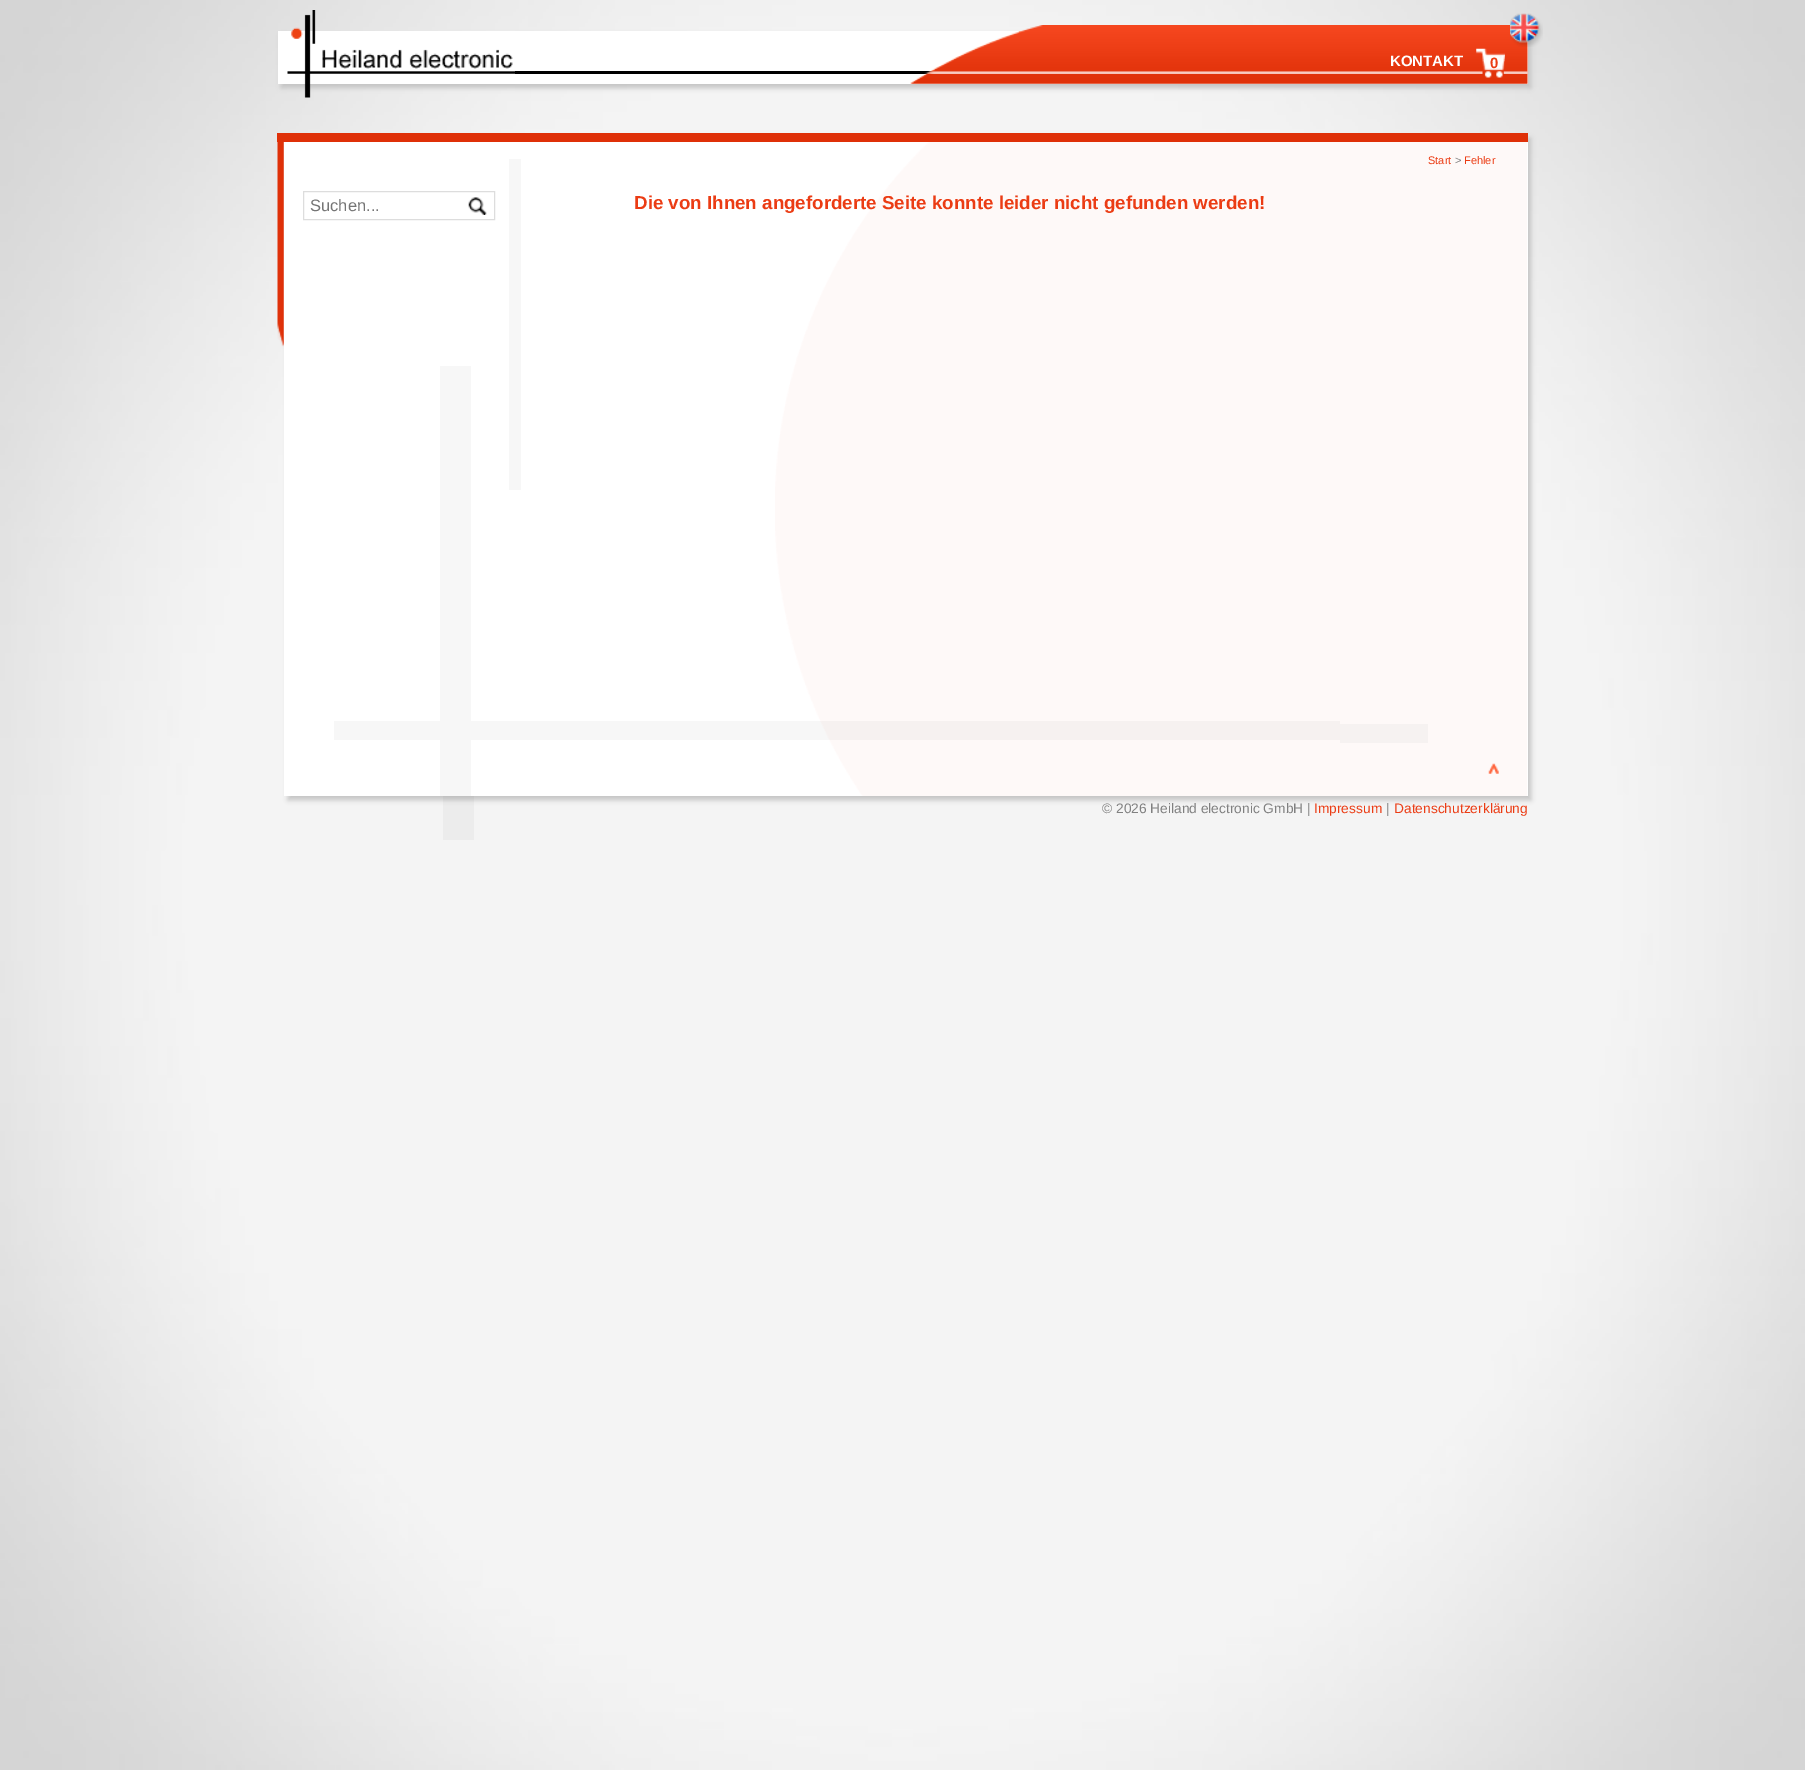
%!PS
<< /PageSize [1805 1770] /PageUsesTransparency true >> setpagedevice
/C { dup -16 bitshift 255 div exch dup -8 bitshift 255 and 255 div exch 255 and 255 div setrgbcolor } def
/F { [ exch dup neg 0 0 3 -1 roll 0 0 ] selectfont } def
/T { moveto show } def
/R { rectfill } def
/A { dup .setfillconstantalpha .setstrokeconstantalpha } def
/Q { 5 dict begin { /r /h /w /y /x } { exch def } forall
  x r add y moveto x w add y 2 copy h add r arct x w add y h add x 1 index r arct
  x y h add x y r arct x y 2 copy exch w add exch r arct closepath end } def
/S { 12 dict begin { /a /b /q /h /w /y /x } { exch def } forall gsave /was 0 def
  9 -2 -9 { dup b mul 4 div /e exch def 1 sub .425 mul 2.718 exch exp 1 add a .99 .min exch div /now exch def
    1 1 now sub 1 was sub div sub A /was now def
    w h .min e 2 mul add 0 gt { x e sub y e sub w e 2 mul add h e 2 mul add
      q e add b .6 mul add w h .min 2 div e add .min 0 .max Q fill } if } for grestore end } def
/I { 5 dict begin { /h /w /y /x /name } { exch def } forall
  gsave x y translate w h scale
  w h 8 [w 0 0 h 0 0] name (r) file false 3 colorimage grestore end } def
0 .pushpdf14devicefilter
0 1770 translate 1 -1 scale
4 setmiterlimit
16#FFFFFF C
0 0 1805 1770 R
(1.rgb) 0 0 1805 1770 I
16#C4C4C4 C
281 35 1250 53 0 2.5 1 S
16#FFFFFF C
278 31 1250 53 R
(2.rgb) 287 10 228 88 I
16#000000 C
515 71 418 3 R
(4.rgb) 910 25 618 59 I
(3.rgb) 1510 13 33 34 I
/LiberationSans-Bold 15 F
16#FFFFFF C
(KONTAKT) 1390 66 T
(6.rgb) 924 71 604 3 I
(5.rgb) 1476 48 29 30 I
16#EB3C14 C
(0) 1490 68 T
16#C4C4C4 C
288 138 1243 662 0 2.5 1 S
16#FFFFFF C
284 142 1244 654 R
(7.rgb) 775 142 752 654 I
16#DF3008 C
277 133 1251 9 R
(8.rgb) 277 142 7 205 I
/LiberationSans-Regular 11 F
16#EB3C14 C
(Start) 1428 164 T
16#808080 C
(>) 1455 164 T
16#EB3C14 C
(Fehler) 1464 164 T
16#DDDDDD C
303.5 191.5 191 28 rectstroke
/LiberationSans-Regular 16.5 F
16#757575 C
(Suchen...) 310 211 T
(9.rgb) 468 197 19 18 I
/LiberationSans-Bold 18.75 F
16#EB3C14 C
(Die von Ihnen angeforderte Seite konnte leider nicht gefunden werden!) 634 209 T
(10.rgb) 1488 763 11 11 I
16#F7F7F7 C
509 159 12 331 R
334 721 106 19 R
440 366 31 430 R
0.03 A
16#000000 C
471 721 869 19 R
1 A
16#F6F2F1 C
1340 724 88 19 R
0.03 A
16#000000 C
443 796 31 44 R
/LiberationSans-Regular 13.75 F
1 A
16#808080 C
(© 2026 Heiland electronic GmbH |) 1102 813 T
16#EB3C14 C
(Impressum) 1314 813 T
16#808080 C
(|) 1386 813 T
16#EB3C14 C
(Datenschutzerklärung) 1394 813 T
.poppdf14devicefilter showpage
